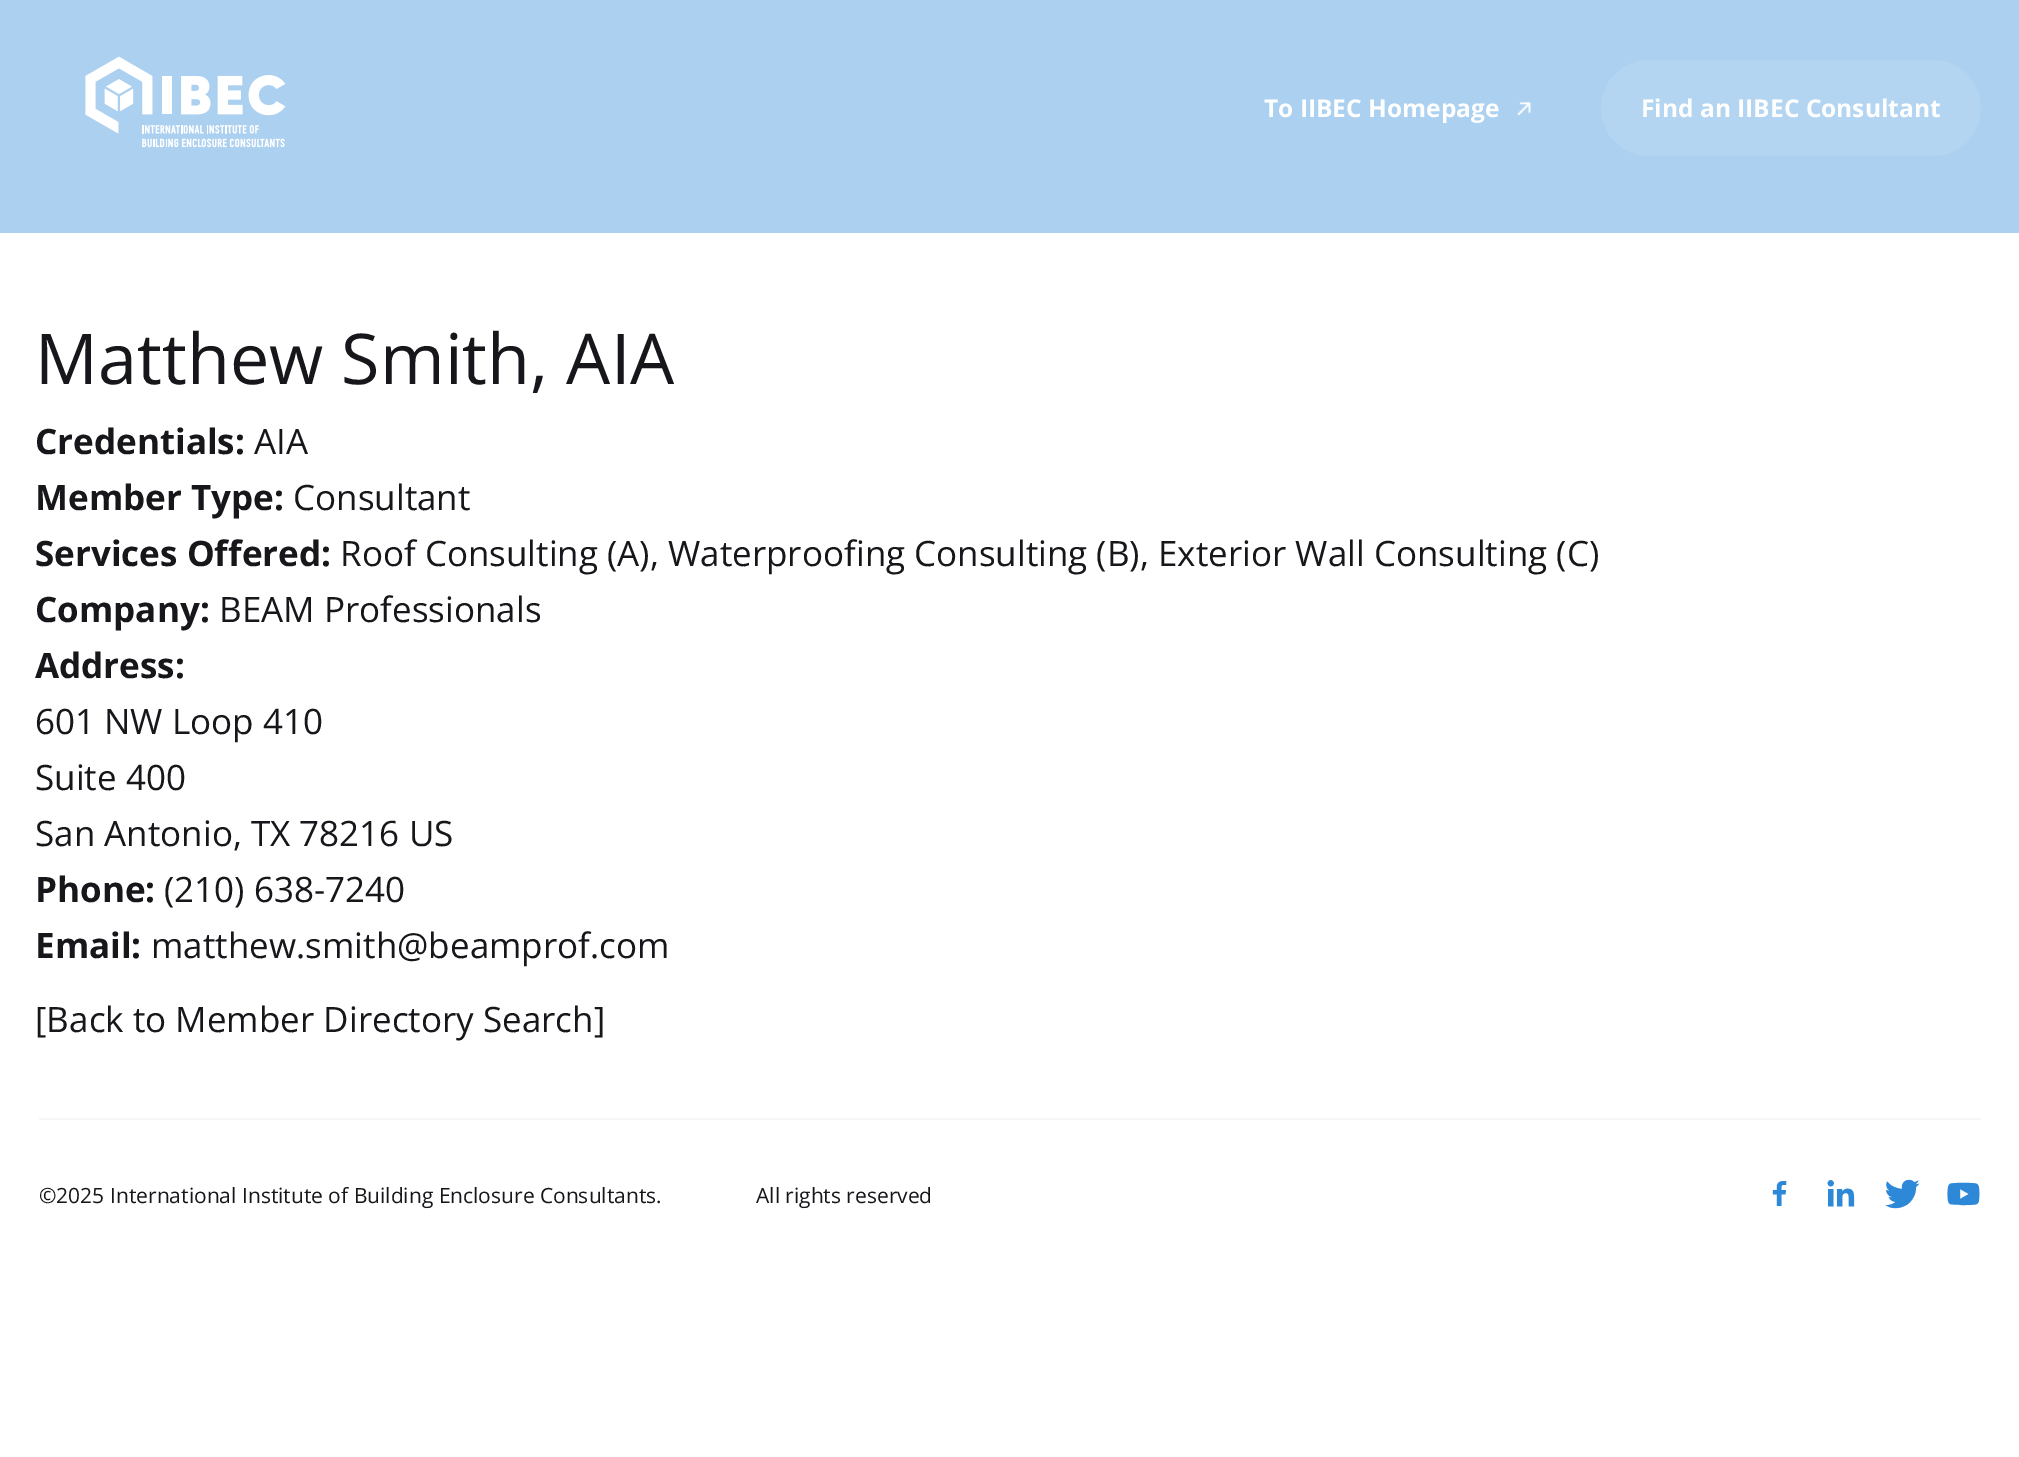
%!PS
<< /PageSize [2019 1457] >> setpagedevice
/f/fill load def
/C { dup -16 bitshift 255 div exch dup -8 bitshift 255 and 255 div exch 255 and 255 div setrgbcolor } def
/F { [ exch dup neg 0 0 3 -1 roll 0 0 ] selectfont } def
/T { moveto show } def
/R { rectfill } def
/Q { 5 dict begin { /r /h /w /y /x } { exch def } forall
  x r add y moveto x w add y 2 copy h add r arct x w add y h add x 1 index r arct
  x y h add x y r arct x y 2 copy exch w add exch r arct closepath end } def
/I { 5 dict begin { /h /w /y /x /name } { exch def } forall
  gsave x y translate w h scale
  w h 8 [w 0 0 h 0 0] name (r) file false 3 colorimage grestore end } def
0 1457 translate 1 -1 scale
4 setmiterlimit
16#FFFFFF C
0 0 2019 1457 R
16#ACD0F0 C
0 0 2019 233 R
(1.rgb) 85 56 201 92 I
/OpenSans-Bold 24.5 F
16#FFFFFF C
(To IIBEC Homepage) 1264 117 T
(2.rgb) 1517 101 14 15 I
16#B4D5F2 C
1601 60 380 96 48 Q f
16#FFFFFF C
(Find an IIBEC Consultant) 1641 117 T
/OpenSans-Regular 70 F
16#17171B C
(Matthew Smith, AIA) 35 384 T
/OpenSans-Bold 35 F
(Credentials:) 35 454 T
/OpenSans-Regular 35 F
(AIA) 254 454 T
/OpenSans-Bold 35 F
(Member Type:) 35 510 T
/OpenSans-Regular 35 F
(Consultant) 293 510 T
/OpenSans-Bold 35 F
(Services Offered:) 35 566 T
/OpenSans-Regular 35 F
(Roof Consulting \(A\), Waterproofing Consulting \(B\), Exterior Wall Consulting \(C\)) 340 566 T
/OpenSans-Bold 35 F
(Company:) 35 622 T
/OpenSans-Regular 35 F
(BEAM Professionals) 219 622 T
/OpenSans-Bold 35 F
(Address:) 35 678 T
/OpenSans-Regular 35 F
(601 NW Loop 410) 35 734 T
(Suite 400) 35 790 T
(San Antonio, TX 78216 US) 35 846 T
/OpenSans-Bold 35 F
(Phone:) 35 902 T
/OpenSans-Regular 35 F
(\(210\) 638-7240) 164 902 T
/OpenSans-Bold 35 F
(Email:) 35 958 T
/OpenSans-Regular 35 F
(matthew.smith@beamprof.com) 151 958 T
([Back to Member Directory Search]) 35 1032 T
16#F6F6F6 C
39 1118 1942 2 R
/OpenSans-Regular 21 F
16#17171B C
(©2025 International Institute of Building Enclosure Consultants.) 39 1203 T
(All rights reserved) 756 1203 T
(3.rgb) 1772 1181 15 25 I
(4.rgb) 1827 1180 28 27 I
(5.rgb) 1885 1179 35 30 I
(6.rgb) 1947 1182 33 24 I
showpage
